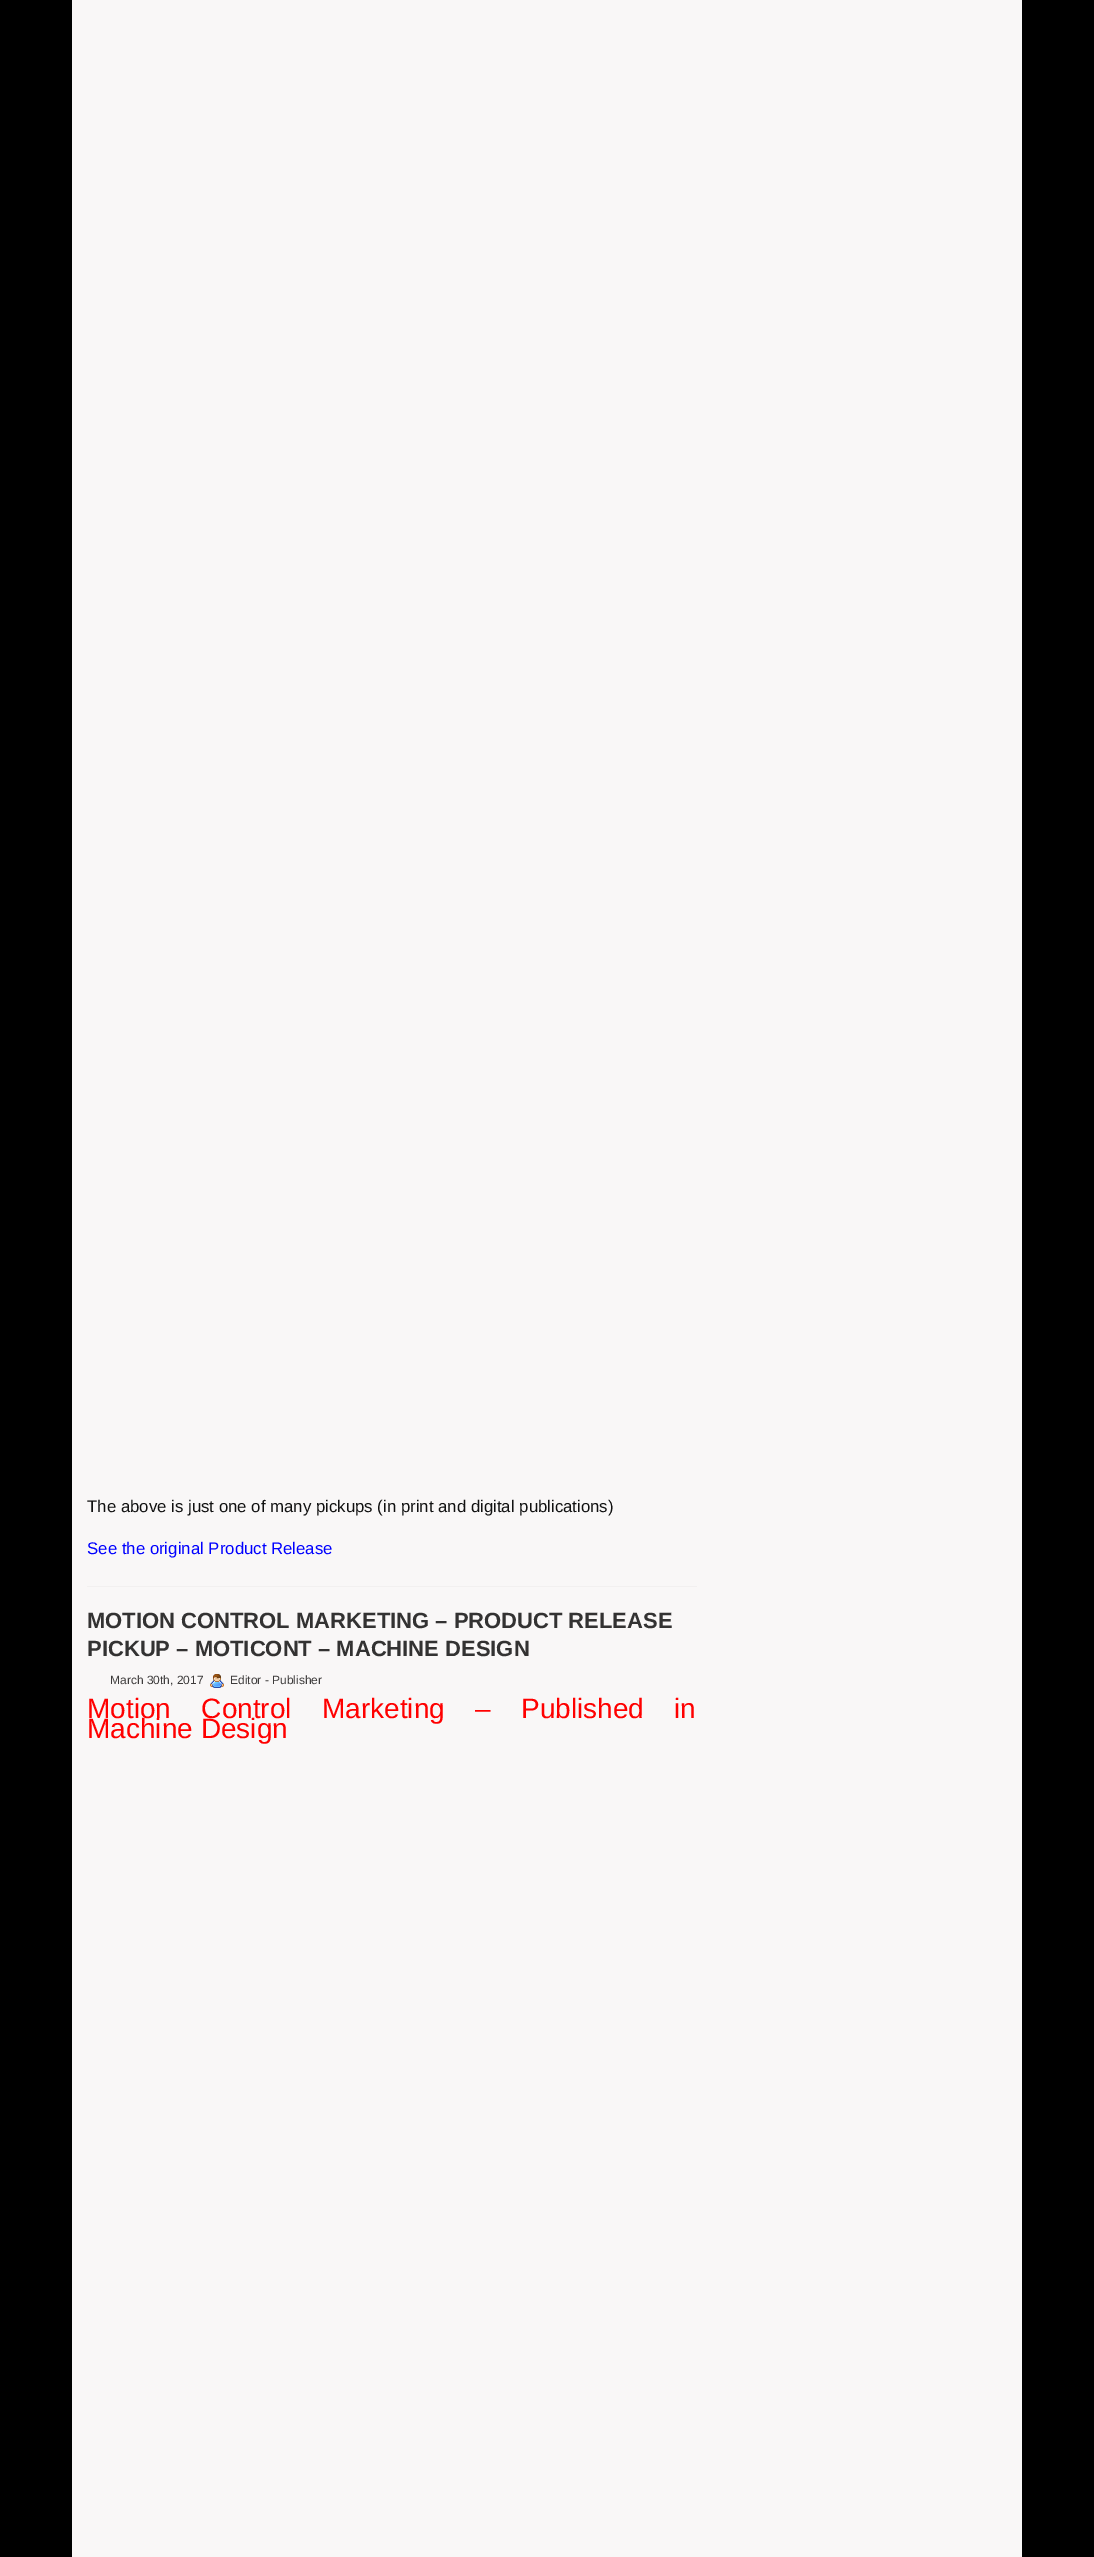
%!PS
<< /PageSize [1094 2557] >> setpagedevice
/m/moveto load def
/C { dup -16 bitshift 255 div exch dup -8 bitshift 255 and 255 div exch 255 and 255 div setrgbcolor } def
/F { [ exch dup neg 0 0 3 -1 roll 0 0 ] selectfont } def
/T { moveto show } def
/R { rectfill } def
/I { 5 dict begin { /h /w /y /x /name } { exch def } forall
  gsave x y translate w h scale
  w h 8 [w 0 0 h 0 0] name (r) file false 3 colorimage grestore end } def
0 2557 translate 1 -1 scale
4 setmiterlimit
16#000000 C
0 0 1094 2557 R
16#F9F7F7 C
72 0 950 2557 R
16#F2F0F0 C
87 1586 610 1 R
/LiberationSans-Regular 16.8 F
16#111111 C
(The above is just one of many pickups \(in print and digital publications\)) 87 1512 T
16#0000FF C
(See the original Product Release) 87 1554 T
/LiberationSans-Bold 22 F
16#333232 C
(MOTION CONTROL MARKETING – PRODUCT RELEASE) 87 1628 T
(PICKUP – MOTICONT – MACHINE DESIGN) 87 1656 T
/LiberationSans-Regular 12 F
16#3E3C3C C
(March 30th, 2017) 110 1684 T
(1.rgb) 210 1674 14 14 I
(Editor - Publisher) 230 1684 T
/LiberationSans-Regular 28 F
16#FF0000 C
87 1718 m 22.5 0 32 (Motion Control Marketing – Published in) widthshow
(Machine Design) 87 1738 T
showpage
